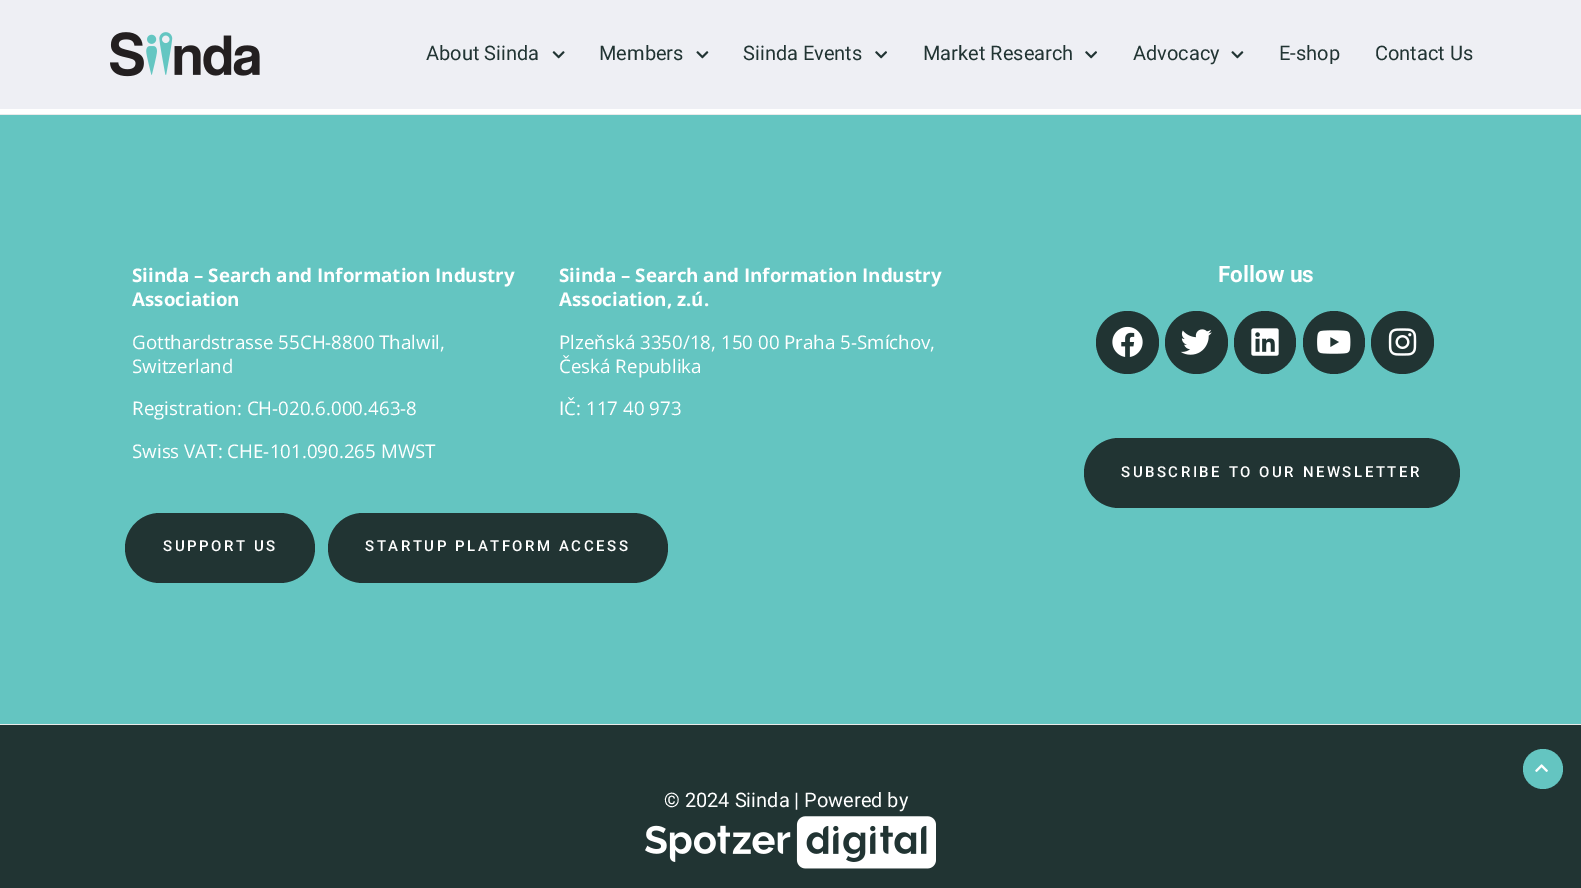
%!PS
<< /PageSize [1581 888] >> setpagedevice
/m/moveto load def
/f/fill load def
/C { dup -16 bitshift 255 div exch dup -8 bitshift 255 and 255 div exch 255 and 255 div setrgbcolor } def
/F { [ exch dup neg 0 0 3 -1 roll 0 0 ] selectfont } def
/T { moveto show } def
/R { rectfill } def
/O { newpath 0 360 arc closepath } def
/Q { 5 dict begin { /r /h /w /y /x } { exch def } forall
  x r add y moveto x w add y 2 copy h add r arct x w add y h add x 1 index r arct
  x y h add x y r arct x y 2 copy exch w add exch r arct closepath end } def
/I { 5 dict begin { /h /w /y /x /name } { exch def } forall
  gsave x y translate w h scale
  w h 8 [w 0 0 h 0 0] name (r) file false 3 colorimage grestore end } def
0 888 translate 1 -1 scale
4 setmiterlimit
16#FFFFFF C
0 0 1581 888 R
16#EEEFF4 C
0 0 1581 109 R
(1.rgb) 110 32 150 45 I
/Roboto-Regular 20 F
16#213433 C
(About Siinda) 426 60 T
(2.rgb) 552 51 13 8 I
(Members) 599 60 T
(3.rgb) 696 51 13 8 I
(Siinda Events) 743 60 T
(4.rgb) 875 51 12 8 I
(Market Research) 923 60 T
(4.rgb) 1085 51 12 8 I
(Advocacy) 1133 60 T
(3.rgb) 1231 51 13 8 I
(E-shop) 1279 60 T
(Contact Us) 1375 60 T
16#64C5C1 C
0 115 1581 609 R
16#EAEAEA C
0 114 1581 1 R
/OpenSans-Bold 18.75 F
16#FFFFFF C
(Siinda – Search and Information Industry) 132 282 T
(Association) 132 306 T
/OpenSans-Regular 18.75 F
(Gotthardstrasse 55CH-8800 Thalwil,) 132 349 T
(Switzerland) 132 373 T
(Registration: CH-020.6.000.463-8) 132 415 T
(Swiss VAT: CHE-101.090.265 MWST) 132 458 T
/OpenSans-Bold 18.75 F
(Siinda – Search and Information Industry) 559 282 T
(Association, z.ú.) 559 306 T
/OpenSans-Regular 18.75 F
(Plzeňská 3350/18, 150 00 Praha 5-Smíchov,) 559 349 T
(Česká Republika) 559 373 T
(IČ: 117 40 973) 559 415 T
16#213433 C
125 513 190 70 35 Q f
/Roboto-Medium 15 F
16#FFFFFF C
163 551 m 2.5 0 (SUPPORT US) ashow
16#213433 C
328 513 340 70 35 Q f
16#FFFFFF C
365 551 m 2.5 0 (STARTUP PLATFORM ACCESS) ashow
/Roboto-Bold 22.5 F
(Follow us) 1218 282 T
16#213433 C
1127.5 342.5 31.5 O f
(5.rgb) 1112 326 31 31 I
1196.5 342.5 31.5 O f
(6.rgb) 1180 329 32 26 I
1234 311 62 63 31 Q f
(7.rgb) 1251 328 28 28 I
1303 311 62 63 31 Q f
(8.rgb) 1317 330 34 24 I
1402.5 342.5 31.5 O f
(9.rgb) 1388 328 29 28 I
1084 438 376 70 35 Q f
/Roboto-Medium 15 F
16#FFFFFF C
1121 477 m 2.5 0 (SUBSCRIBE TO OUR NEWSLETTER) ashow
16#213433 C
0 725 1581 163 R
16#64C5C1 C
1543 769 20 O f
(10.rgb) 1535 764 13 8 I
16#EAEAEA C
0 724 1581 1 R
/Roboto-Regular 20 F
16#FFFFFF C
(© 2024 Siinda | Powered by) 664 807 T
(11.rgb) 645 816 291 53 I
showpage
